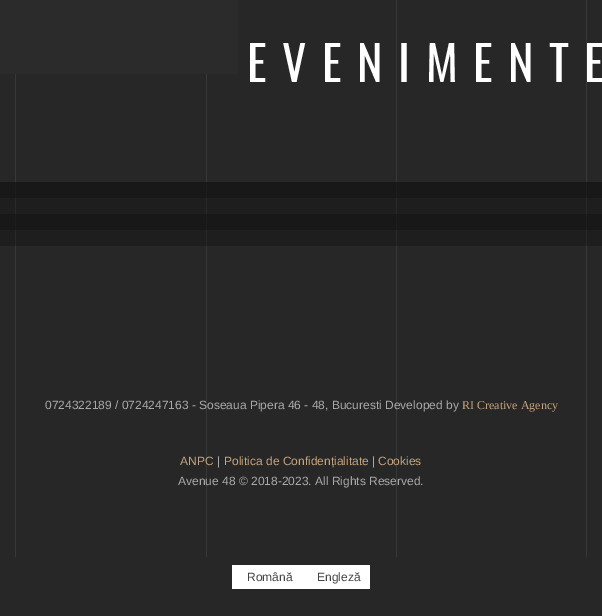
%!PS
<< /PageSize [602 616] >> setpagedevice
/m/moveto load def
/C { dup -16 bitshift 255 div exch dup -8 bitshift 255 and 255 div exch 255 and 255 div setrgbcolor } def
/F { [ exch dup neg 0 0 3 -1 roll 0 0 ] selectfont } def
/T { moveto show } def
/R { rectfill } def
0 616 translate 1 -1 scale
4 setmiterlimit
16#272727 C
0 0 602 616 R
16#1E1E1E C
0 230 602 16 R
16#181818 C
0 214 602 16 R
16#1E1E1E C
0 198 602 16 R
16#181818 C
0 182 602 16 R
16#2B2B2B C
0 0 238 74 R
16#383838 C
15 74 1 108 R
206 74 1 108 R
396 0 1 182 R
586 0 1 182 R
/Oswald-Regular 48.25 F
16#FFFFFF C
247 82 m 15.5 0 (EVENIMENTE) ashow
16#383838 C
15 246 1 311 R
16#282828 C
15 230 1 16 R
16#1D1D1D C
15 214 1 16 R
16#282828 C
15 198 1 16 R
16#1D1D1D C
15 182 1 16 R
16#383838 C
206 246 1 311 R
16#282828 C
206 230 1 16 R
16#1D1D1D C
206 214 1 16 R
16#282828 C
206 198 1 16 R
16#1D1D1D C
206 182 1 16 R
16#383838 C
396 246 1 311 R
16#282828 C
396 230 1 16 R
16#1D1D1D C
396 214 1 16 R
16#282828 C
396 198 1 16 R
16#1D1D1D C
396 182 1 16 R
16#383838 C
586 246 1 311 R
16#282828 C
586 230 1 16 R
16#1D1D1D C
586 214 1 16 R
16#282828 C
586 198 1 16 R
16#1D1D1D C
586 182 1 16 R
/LiberationSans-Regular 12 F
16#A9A9A9 C
(0724322189 / 0724247163 - Soseaua Pipera 46 - 48, Bucuresti Developed by) 45 409 T
/LiberationSerif-Regular 12 F
16#C5A47E C
(RI Creative Agency) 462 409 T
/LiberationSans-Regular 12 F
(ANPC) 180 465 T
16#A9A9A9 C
(|) 217 465 T
16#C5A47E C
(Politica de Confidențialitate) 224 465 T
16#A9A9A9 C
(|) 372 465 T
16#C5A47E C
(Cookies) 378 465 T
16#A9A9A9 C
(Avenue 48 © 2018-2023. All Rights Reserved.) 178 485 T
16#FFFFFF C
232 565 138 24 R
16#444444 C
(Română) 247 581 T
(Engleză) 317 581 T
showpage
